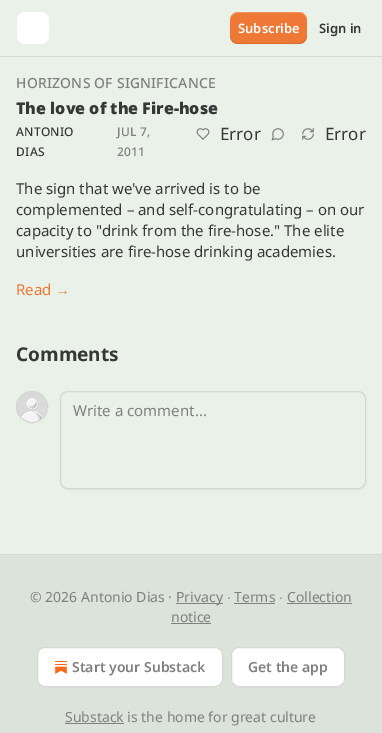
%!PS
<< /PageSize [382 733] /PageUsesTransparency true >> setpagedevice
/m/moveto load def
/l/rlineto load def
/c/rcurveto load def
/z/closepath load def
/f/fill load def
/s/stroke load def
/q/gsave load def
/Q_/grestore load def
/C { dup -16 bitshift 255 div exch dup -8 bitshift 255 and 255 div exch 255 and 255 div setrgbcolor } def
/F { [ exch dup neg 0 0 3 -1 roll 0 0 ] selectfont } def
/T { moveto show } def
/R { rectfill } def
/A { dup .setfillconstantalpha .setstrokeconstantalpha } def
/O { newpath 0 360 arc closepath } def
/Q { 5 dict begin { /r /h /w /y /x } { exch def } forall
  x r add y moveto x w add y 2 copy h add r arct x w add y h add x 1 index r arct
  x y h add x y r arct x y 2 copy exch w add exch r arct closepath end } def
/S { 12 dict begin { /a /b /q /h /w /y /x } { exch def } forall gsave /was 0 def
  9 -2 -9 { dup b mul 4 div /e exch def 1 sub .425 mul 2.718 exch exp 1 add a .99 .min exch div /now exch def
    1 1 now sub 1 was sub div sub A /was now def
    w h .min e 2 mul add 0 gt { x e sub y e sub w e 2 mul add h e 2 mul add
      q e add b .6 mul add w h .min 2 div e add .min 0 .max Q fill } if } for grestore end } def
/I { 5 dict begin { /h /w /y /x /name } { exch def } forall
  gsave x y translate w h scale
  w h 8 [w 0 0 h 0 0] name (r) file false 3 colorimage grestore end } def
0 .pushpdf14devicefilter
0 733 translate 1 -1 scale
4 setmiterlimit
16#EAF1E8 C
0 0 382 733 R
16#D3D9D1 C
0 56 382 1 R
16#FFFFFF C
17 12 32 32 8 Q f
16#EE7835 C
230 12 77 32 8 Q f
0.1 A
16#000000 C
230 35 m 0 11 10 9 18 9 c 41 0 l 8 0 18 2 18 -9 c 0 4 -4 8 -8 8 c -61 0 l -4 0 -8 -4 -8 -8 c z f
0.2 A
16#FFFFFF C
238 13 m 61 0 l 4 0 8 4 8 8 c 0 -11 -10 -9 -18 -9 c -41 0 l -8 0 -18 -2 -18 9 c 0 -4 4 -8 8 -8 c z f
/NotoSans-SemiBold 13 F
1 A
(Subscribe) 238 33 T
16#363737 C
(Sign in) 319 33 T
/NotoSans-Medium 14 F
16#7E817E C
16 88 m .2 0 (HORIZONS OF SIGNIFICANCE) ashow
/NotoSans-Black 16 F
16#363737 C
(The love of the Fire-hose) 16 114 T
/NotoSans-Medium 12 F
16 136 m .25 0 (ANTONIO) ashow
16 156 m .25 0 (DIAS) ashow
16#7E817E C
117 136 m .25 0 (JUL 7,) ashow
117 156 m .25 0 (2011) ashow
(1.rgb) 196 128 14 12 I
/NotoSans-Regular 17 F
16#363737 C
(Error) 220 140 T
(2.rgb) 271 128 13 13 I
(3.rgb) 302 128 12 12 I
(Error) 325 140 T
/NotoSans-Regular 15 F
(The sign that we've arrived is to be) 16 194 T
(complemented – and self-congratulating – on our) 16 215 T
(capacity to "drink from the fire-hose." The elite) 16 236 T
(universities are fire-hose drinking academies.) 16 257 T
16#EE7835 C
(Read) 16 295 T
/LiberationSans-Regular 15 F
(→) 55 295 T
/NotoSans-Bold 19 F
16#363737 C
(Comments) 16 361 T
16#D3D9D1 C
32 407 15.5 O s
(4.rgb) 16 391 32 32 I
32 407 15.5 O s
16#000000 C
60 392 306 98 8 1 .05 S
16#EAF1E8 C
60.5 391.5 305 97 7.5 Q q f Q_
16#D3D9D1 C
s
/NotoSans-Regular 15 F
16#7E817E C
(Write a comment...) 73 416 T
16#DCE3DA C
0 555 382 178 R
16#D3D9D1 C
0 554 382 1 R
/NotoSans-Regular 14 F
16#7E817E C
(© 2026 Antonio Dias ·) 30 602 T
176 603 47 1 R
(Privacy) 176 602 T
/LiberationSans-Regular 14 F
(∙) 227 602 T
/NotoSans-Regular 14 F
(Terms) 234 602 T
234 603 41 1 R
/LiberationSans-Regular 14 F
(∙) 279 602 T
/NotoSans-Regular 14 F
(Collection) 287 602 T
287 603 65 1 R
(notice) 171 622 T
171 623 40 1 R
16#FFFFFF C
37.5 647.5 185 39 7.5 Q q f Q_
16#D3D9D1 C
s
(5.rgb) 55 661 12 13 I
/NotoSans-SemiBold 14 F
16#7E817E C
(Start your Substack) 72 672 T
16#FFFFFF C
231.5 647.5 113 39 7.5 Q q f Q_
16#D3D9D1 C
s
16#7E817E C
(Get the app) 248 672 T
65 723 59 1 R
/NotoSans-Regular 14 F
(Substack is the home for great culture) 65 722 T
.poppdf14devicefilter showpage
